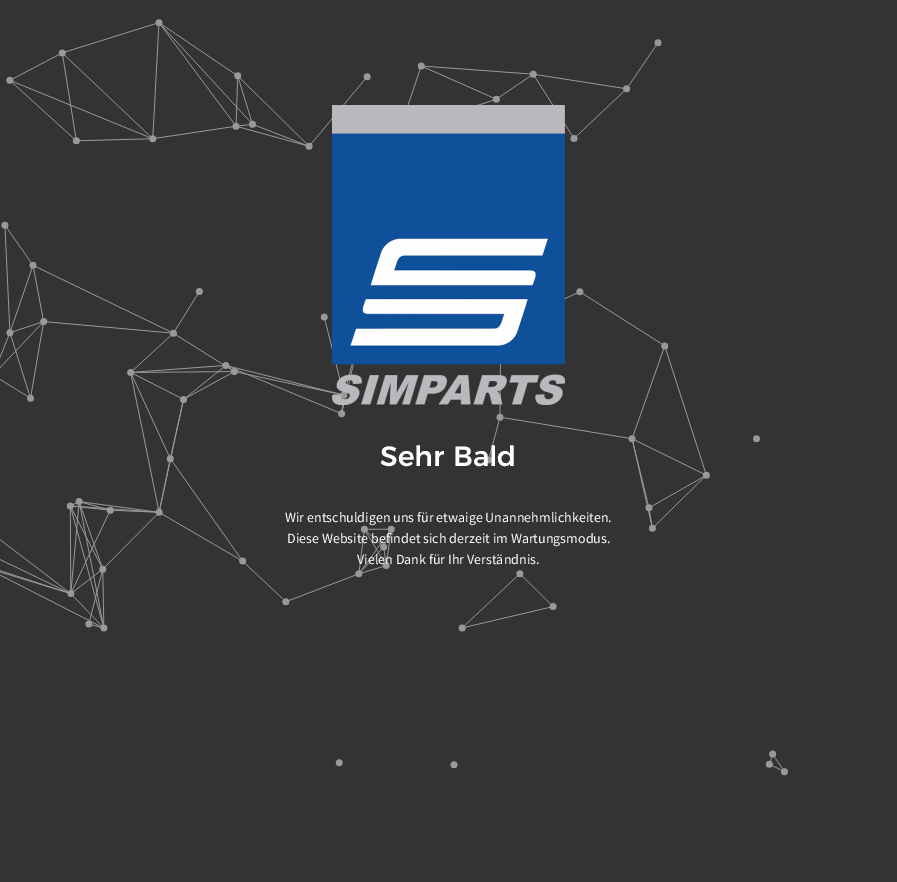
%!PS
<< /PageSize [897 882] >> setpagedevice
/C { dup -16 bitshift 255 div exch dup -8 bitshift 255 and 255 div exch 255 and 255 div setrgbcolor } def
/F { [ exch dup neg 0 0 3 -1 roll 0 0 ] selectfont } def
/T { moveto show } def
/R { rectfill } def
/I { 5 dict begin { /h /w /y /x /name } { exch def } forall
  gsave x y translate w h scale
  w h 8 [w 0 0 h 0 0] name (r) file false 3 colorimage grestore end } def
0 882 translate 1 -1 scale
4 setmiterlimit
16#333333 C
0 0 897 882 R
(1.rgb) 0 19 788 757 I
(2.rgb) 332 105 233 300 I
/Montserrat-Medium 28 F
16#FFFFFF C
(Sehr Bald) 380 466 T
/SourceSansPro-Regular 14 F
(Wir entschuldigen uns für etwaige Unannehmlichkeiten.) 285 522 T
(Diese Website befindet sich derzeit im Wartungsmodus.) 287 543 T
(Vielen Dank für Ihr Verständnis.) 357 564 T
showpage
